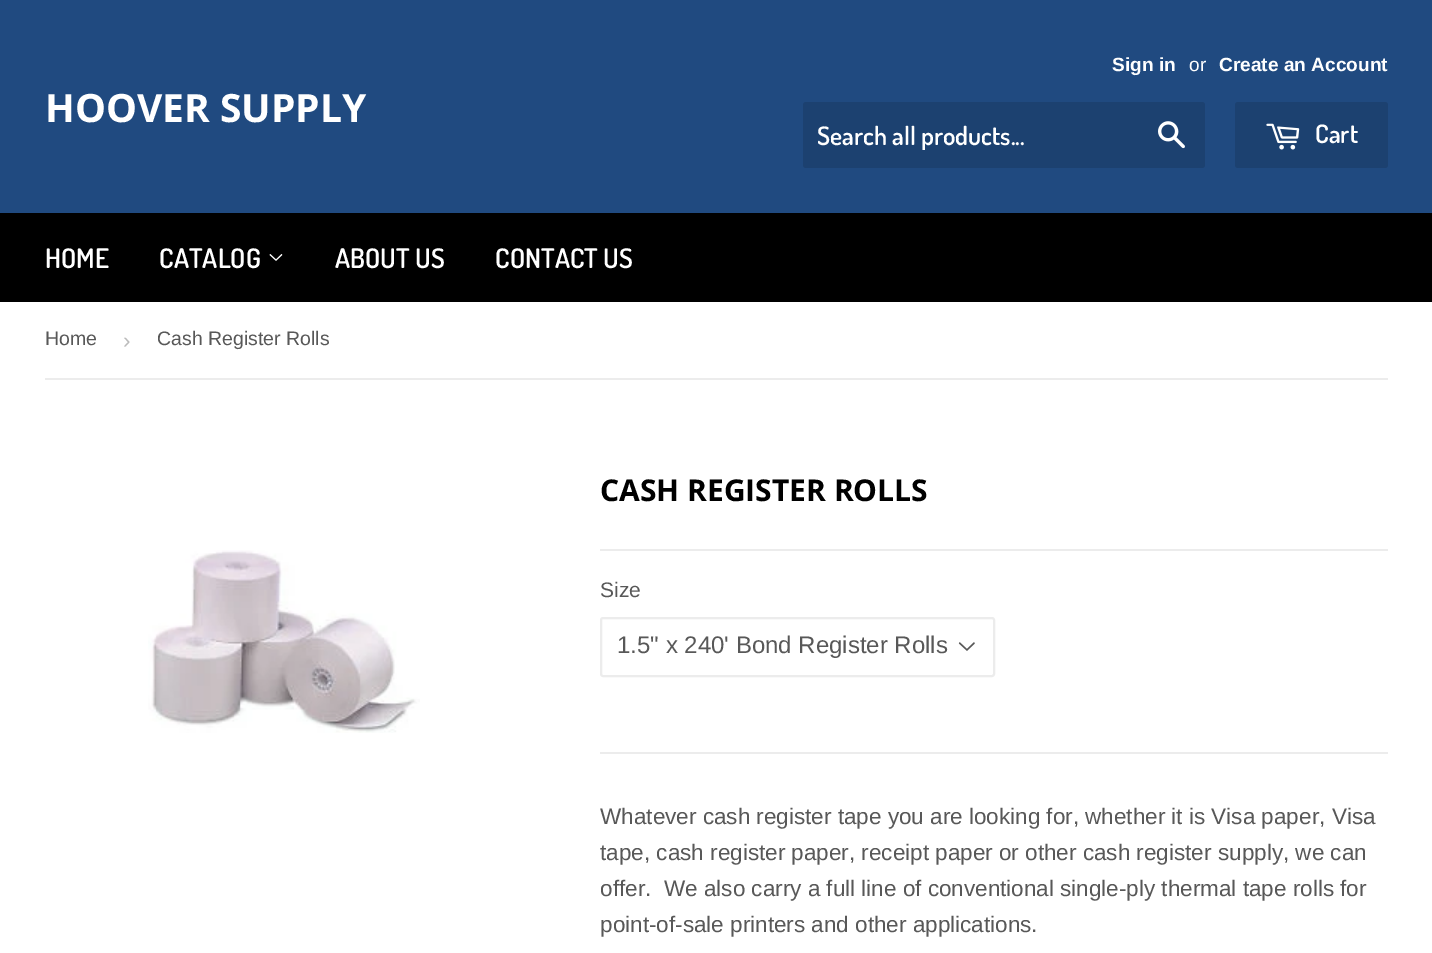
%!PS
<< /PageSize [1432 953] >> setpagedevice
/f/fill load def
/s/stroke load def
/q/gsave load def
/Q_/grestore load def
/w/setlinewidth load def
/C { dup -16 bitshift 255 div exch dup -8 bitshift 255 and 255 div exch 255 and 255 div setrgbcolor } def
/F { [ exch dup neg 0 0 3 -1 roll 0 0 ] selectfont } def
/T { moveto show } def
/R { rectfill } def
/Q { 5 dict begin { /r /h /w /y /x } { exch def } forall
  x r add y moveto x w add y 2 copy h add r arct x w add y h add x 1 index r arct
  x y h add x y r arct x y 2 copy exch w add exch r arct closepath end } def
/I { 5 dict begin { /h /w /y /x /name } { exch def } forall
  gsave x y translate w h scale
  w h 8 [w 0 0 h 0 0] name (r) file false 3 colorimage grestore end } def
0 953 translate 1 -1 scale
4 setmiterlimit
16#FFFFFF C
0 0 1432 953 R
16#204A80 C
0 0 1432 213 R
/OpenSans-Bold 39 F
16#FFFFFF C
(HOOVER SUPPLY) 45 122 T
/LiberationSans-Bold 19.1 F
(Sign in) 1112 71 T
/LiberationSans-Regular 19.1 F
(or) 1189 71 T
/LiberationSans-Bold 19.1 F
(Create an Account) 1219 71 T
16#1C4170 C
803 102 402 66 3 Q f
q
818 119 313 31 rectclip
/Dosis-SemiBold 25.5 F
16#FFFFFF C
(Search all products...) 817 145 T
Q_
(1.rgb) 1158 121 27 28 I
1235 102 153 66 3 Q f
(2.rgb) 1266 123 34 27 I
/Dosis-SemiBold 25.5 F
16#FFFFFF C
(Cart) 1315 143 T
16#000000 C
0 213 1432 89 R
/Dosis-SemiBold 27 F
16#FFFFFF C
(HOME) 45 268 T
(CATALOG) 159 268 T
(3.rgb) 269 254 14 7 I
(ABOUT US) 335 268 T
(CONTACT US) 495 268 T
16#ECECEC C
45 378 1343 2 R
/LiberationSans-Regular 19.5 F
16#585858 C
(Home) 45 345 T
/LiberationSans-Regular 22.5 F
16#BBBBBB C
(›) 123 348 T
/LiberationSans-Regular 19.5 F
16#585858 C
(Cash Register Rolls) 157 345 T
(4.rgb) 148 550 272 183 I
/OpenSans-Bold 30 F
16#000000 C
(CASH REGISTER ROLLS) 600 501 T
16#ECECEC C
600 549 788 2 R
/LiberationSans-Regular 21 F
16#585858 C
(Size) 600 597 T
(5.rgb) 958 642 17 9 I
16#ECECEC C
2 w
601 618 393 58 2 Q s
/LiberationSans-Regular 24 F
16#585858 C
(1.5" x 240' Bond Register Rolls) 617 653 T
16#ECECEC C
600 752 788 2 R
/LiberationSans-Regular 22.5 F
16#585858 C
(Whatever cash register tape you are looking for, whether it is Visa paper, Visa) 600 824 T
(tape, cash register paper, receipt paper or other cash register supply, we can) 600 860 T
(offer.  We also carry a full line of conventional single-ply thermal tape rolls for) 600 896 T
(point-of-sale printers and other applications.) 600 932 T
showpage
